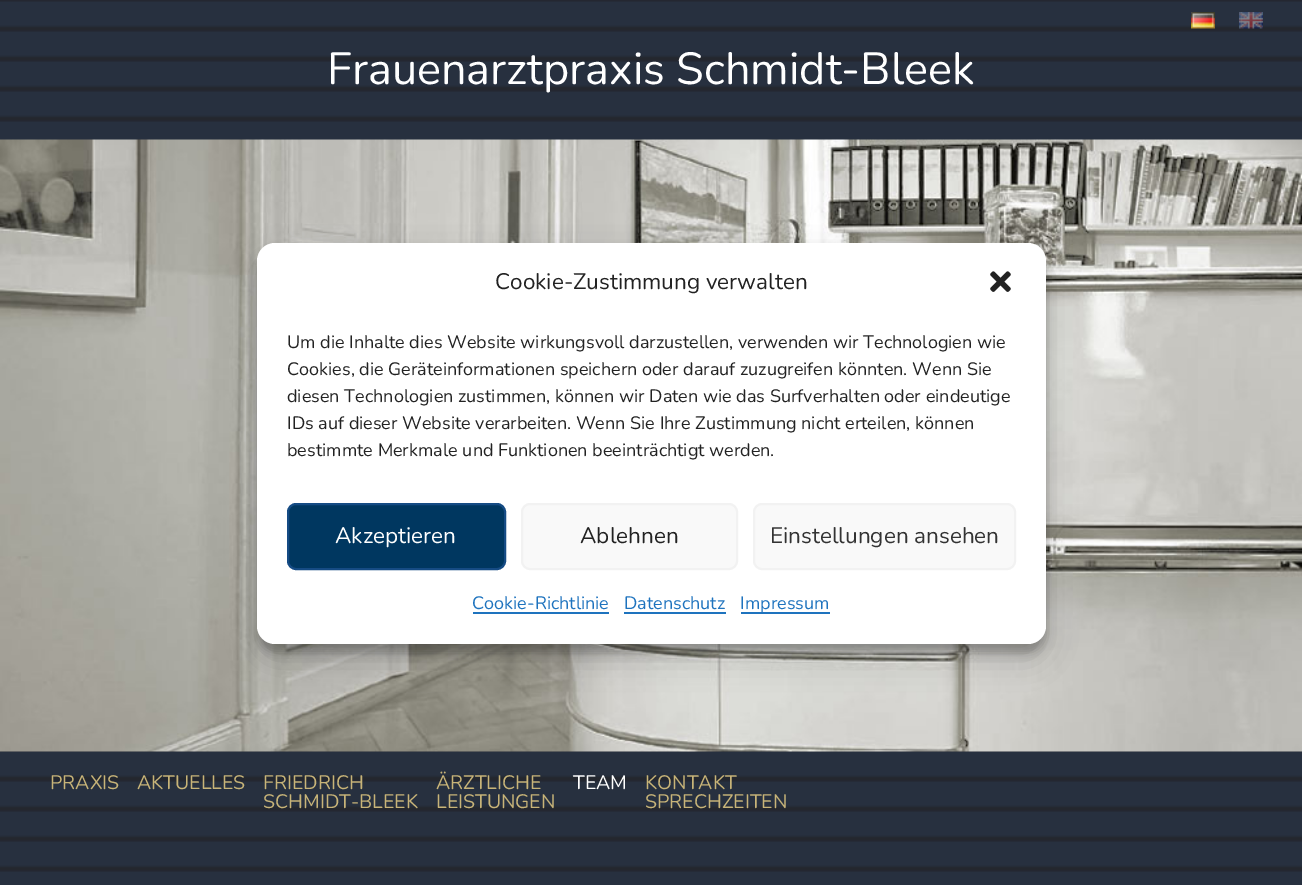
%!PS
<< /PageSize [1302 885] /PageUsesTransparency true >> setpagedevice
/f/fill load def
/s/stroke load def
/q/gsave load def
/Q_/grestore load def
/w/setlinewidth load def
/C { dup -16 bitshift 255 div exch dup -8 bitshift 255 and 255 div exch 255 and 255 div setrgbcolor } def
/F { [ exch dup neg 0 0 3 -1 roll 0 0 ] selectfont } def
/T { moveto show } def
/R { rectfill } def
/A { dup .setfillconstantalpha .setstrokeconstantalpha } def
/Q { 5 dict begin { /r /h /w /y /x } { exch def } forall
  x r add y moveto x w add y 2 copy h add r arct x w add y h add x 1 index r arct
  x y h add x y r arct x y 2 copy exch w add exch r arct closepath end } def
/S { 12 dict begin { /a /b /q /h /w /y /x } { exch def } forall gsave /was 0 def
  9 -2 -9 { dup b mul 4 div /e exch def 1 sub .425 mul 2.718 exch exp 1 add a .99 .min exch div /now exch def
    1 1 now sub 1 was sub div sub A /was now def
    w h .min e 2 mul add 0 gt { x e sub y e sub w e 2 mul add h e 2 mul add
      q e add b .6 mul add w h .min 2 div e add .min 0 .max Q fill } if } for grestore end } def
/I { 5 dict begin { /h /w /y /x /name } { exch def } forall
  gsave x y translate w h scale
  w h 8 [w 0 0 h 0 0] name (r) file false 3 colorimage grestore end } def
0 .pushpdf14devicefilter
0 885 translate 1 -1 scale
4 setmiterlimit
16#FFFFFF C
0 0 1302 885 R
(1.rgb) 0 0 1302 885 I
(2.rgb) 1191 12 24 17 I
(3.rgb) 1239 12 24 17 I
/Nunito-Regular 45 F
(Frauenarztpraxis Schmidt-Bleek) 327 84 T
(4.rgb) 0 139 1302 613 I
/Nunito-Regular 19.5 F
16#C8B478 C
(PRAXIS) 50 789 T
(AKTUELLES) 137 789 T
(FRIEDRICH) 263 789 T
(SCHMIDT-BLEEK) 263 808 T
(ÄRZTLICHE) 436 789 T
(LEISTUNGEN) 436 808 T
16#FFFFFF C
(TEAM) 573 789 T
16#C8B478 C
(KONTAKT) 645 789 T
(SPRECHZEITEN) 645 808 T
16#000000 C
257 252 789 401 18 4.5 .23 S
257 258 789 401 18 15 .19 S
16#FFFFFF C
257 243 789 401 18 Q f
/Nunito-Regular 22.5 F
16#222222 C
(Cookie-Zustimmung verwalten) 495 289 T
(5.rgb) 990 271 21 21 I
/Nunito-Regular 18 F
(Um die Inhalte dies Website wirkungsvoll darzustellen, verwenden wir Technologien wie) 287 348 T
(Cookies, die Geräteinformationen speichern oder darauf zuzugreifen könnten. Wenn Sie) 287 375 T
(diesen Technologien zustimmen, können wir Daten wie das Surfverhalten oder eindeutige) 287 402 T
(IDs auf dieser Website verarbeiten. Wenn Sie Ihre Zustimmung nicht erteilen, können) 287 429 T
(bestimmte Merkmale und Funktionen beeinträchtigt werden.) 287 456 T
16#003760 C
288 504 217 65 8 Q q f Q_
16#154B84 C
2 w
s
/Nunito-Regular 22.5 F
16#FFFFFF C
(Akzeptieren) 335 543 T
16#F9F9F9 C
522 504 215 65 8 Q q f Q_
16#F2F2F2 C
s
16#222222 C
(Ablehnen) 580 543 T
16#F9F9F9 C
754 504 261 65 8 Q q f Q_
16#F2F2F2 C
s
16#333333 C
(Einstellungen ansehen) 770 543 T
/Nunito-Regular 18 F
16#1E73BE C
(Cookie-Richtlinie) 472 609 T
473 612 136 2 R
(Datenschutz) 624 609 T
624 612 102 2 R
741 612 89 2 R
(Impressum) 740 609 T
.poppdf14devicefilter showpage
